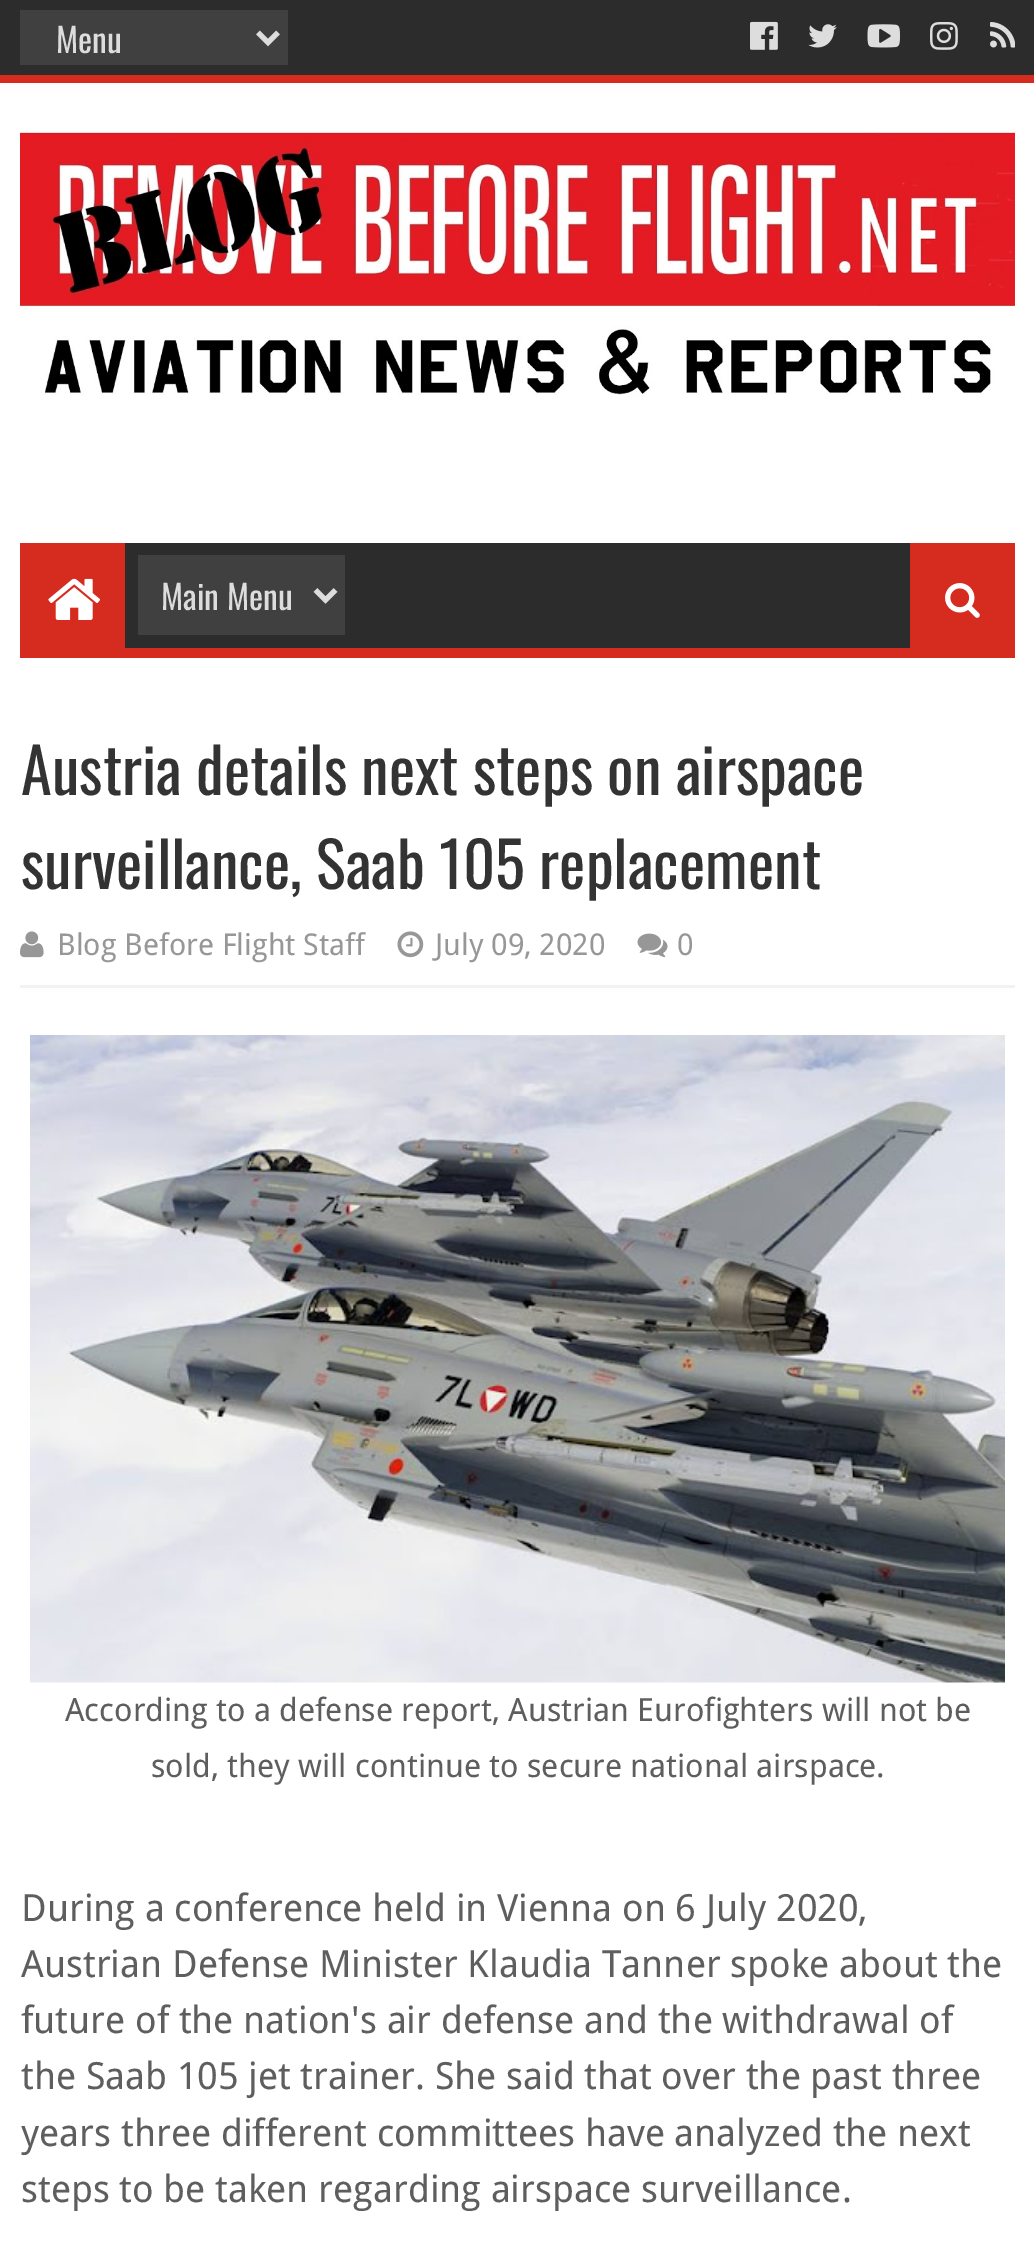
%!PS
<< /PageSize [1034 2258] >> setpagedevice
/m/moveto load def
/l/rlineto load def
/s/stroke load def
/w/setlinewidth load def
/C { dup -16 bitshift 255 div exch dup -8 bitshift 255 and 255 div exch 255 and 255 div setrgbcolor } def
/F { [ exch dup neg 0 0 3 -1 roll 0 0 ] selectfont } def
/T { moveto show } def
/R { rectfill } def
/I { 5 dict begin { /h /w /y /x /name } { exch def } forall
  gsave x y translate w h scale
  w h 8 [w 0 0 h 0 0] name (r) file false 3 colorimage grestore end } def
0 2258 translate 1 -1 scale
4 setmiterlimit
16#FFFFFF C
0 0 1034 2258 R
16#2C2C2C C
0 0 1034 75 R
16#D52C1F C
0 75 1034 8 R
16#404040 C
20 10 268 55 R
16#DDDDDD C
5 w
258 32.5 m 10 10 l 10 -10 l s
/Oswald-Regular 33.5 F
(Menu) 56 53 T
(1.rgb) 750 21 28 29 I
(2.rgb) 808 24 29 24 I
(3.rgb) 867 24 33 24 I
(4.rgb) 930 22 28 28 I
(5.rgb) 990 22 25 26 I
(6.rgb) 20 132 995 263 I
16#2C2C2C C
125 543 785 105 R
16#D52C1F C
20 648 995 10 R
20 543 105 105 R
(7.rgb) 48 578 52 42 I
16#404040 C
138 555 207 80 R
16#DDDDDD C
315.5 590 m 10 10 l 10 -10 l s
(Main Menu) 161 610 T
16#D52C1F C
910 543 105 105 R
(8.rgb) 945 583 35 35 I
/Oswald-Regular 62.5 F
16#333333 C
(Austria details next steps on airspace) 21 795 T
(surveillance, Saab 105 replacement) 21 889 T
16#F2F2F2 C
20 985 995 3 R
(9.rgb) 20 931 24 27 I
/DroidSans-Regular 30 F
16#979797 C
(Blog Before Flight Staff) 57 955 T
(10.rgb) 397 931 27 27 I
(July 09, 2020) 435 955 T
(11.rgb) 637 933 31 25 I
(0) 677 955 T
(12.rgb) 30 1035 975 648 I
/DroidSans-Regular 32 F
16#5E5E5E C
(According to a defense report, Austrian Eurofighters will not be) 65 1721 T
(sold, they will continue to secure national airspace.) 151 1777 T
/DroidSans-Regular 37.5 F
(During a conference held in Vienna on 6 July 2020,) 21 1921 T
(Austrian Defense Minister Klaudia Tanner spoke about the) 21 1977 T
(future of the nation's air defense and the withdrawal of) 21 2033 T
(the Saab 105 jet trainer. She said that over the past three) 21 2089 T
(years three different committees have analyzed the next) 21 2146 T
(steps to be taken regarding airspace surveillance.) 21 2202 T
showpage
